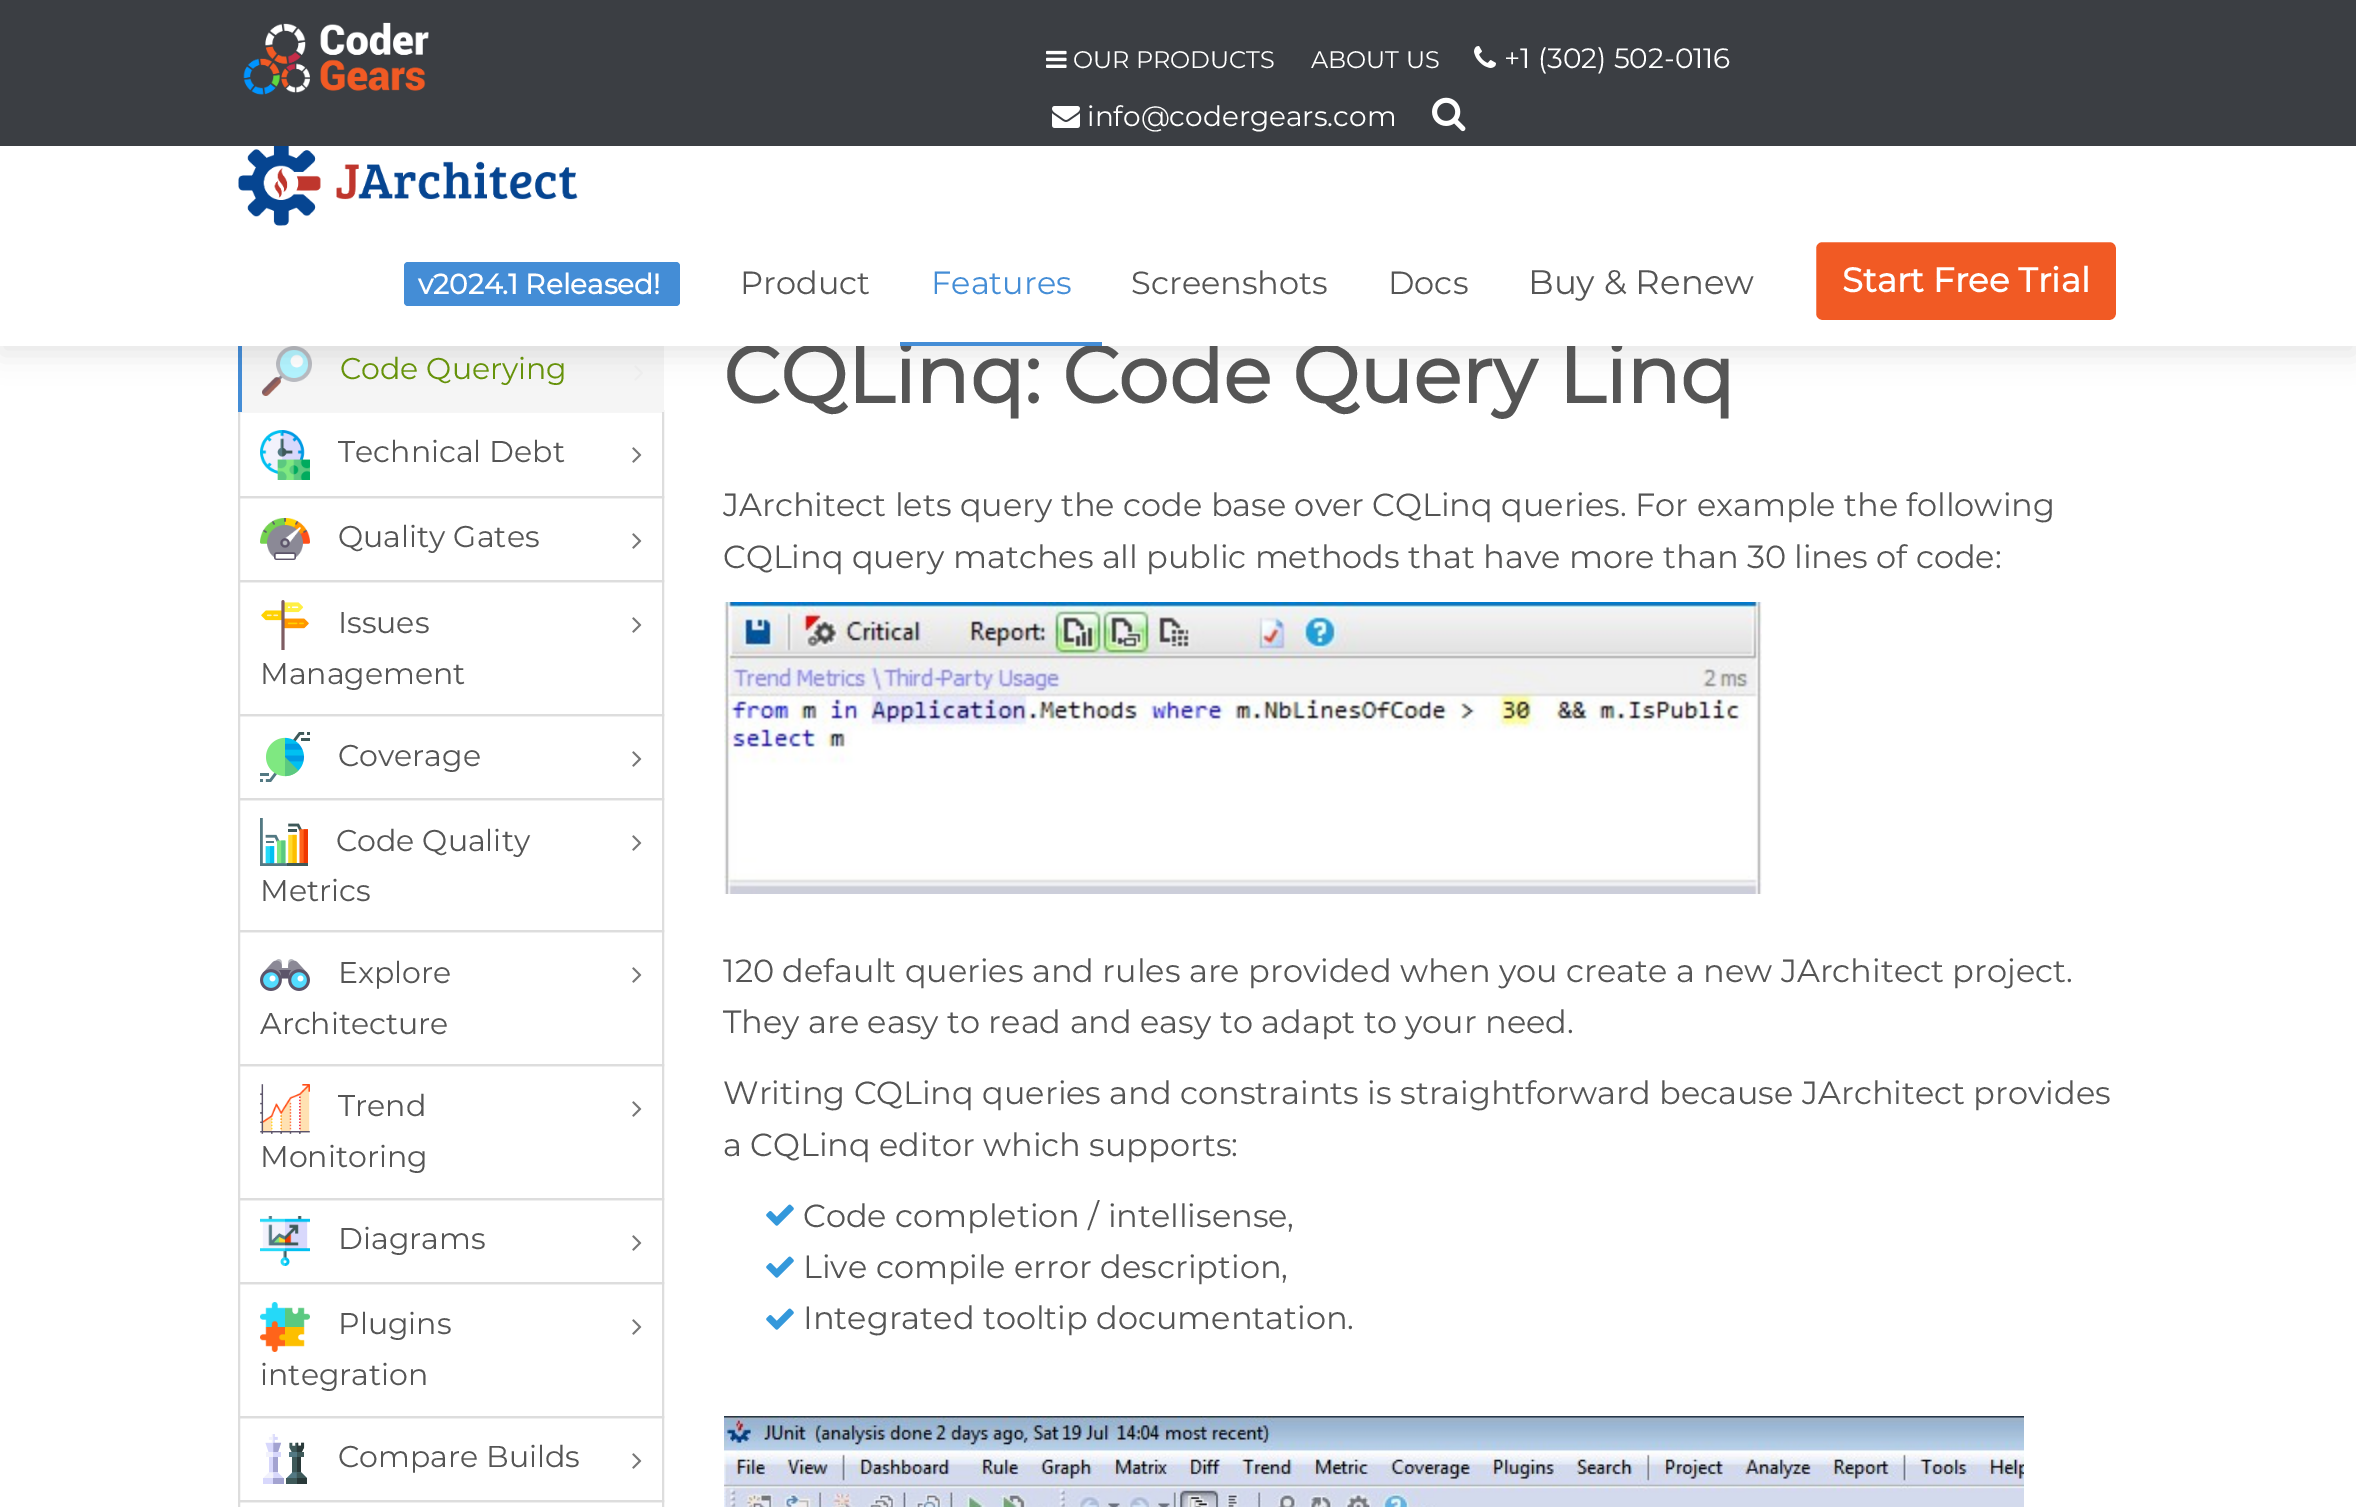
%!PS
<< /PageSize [2356 1507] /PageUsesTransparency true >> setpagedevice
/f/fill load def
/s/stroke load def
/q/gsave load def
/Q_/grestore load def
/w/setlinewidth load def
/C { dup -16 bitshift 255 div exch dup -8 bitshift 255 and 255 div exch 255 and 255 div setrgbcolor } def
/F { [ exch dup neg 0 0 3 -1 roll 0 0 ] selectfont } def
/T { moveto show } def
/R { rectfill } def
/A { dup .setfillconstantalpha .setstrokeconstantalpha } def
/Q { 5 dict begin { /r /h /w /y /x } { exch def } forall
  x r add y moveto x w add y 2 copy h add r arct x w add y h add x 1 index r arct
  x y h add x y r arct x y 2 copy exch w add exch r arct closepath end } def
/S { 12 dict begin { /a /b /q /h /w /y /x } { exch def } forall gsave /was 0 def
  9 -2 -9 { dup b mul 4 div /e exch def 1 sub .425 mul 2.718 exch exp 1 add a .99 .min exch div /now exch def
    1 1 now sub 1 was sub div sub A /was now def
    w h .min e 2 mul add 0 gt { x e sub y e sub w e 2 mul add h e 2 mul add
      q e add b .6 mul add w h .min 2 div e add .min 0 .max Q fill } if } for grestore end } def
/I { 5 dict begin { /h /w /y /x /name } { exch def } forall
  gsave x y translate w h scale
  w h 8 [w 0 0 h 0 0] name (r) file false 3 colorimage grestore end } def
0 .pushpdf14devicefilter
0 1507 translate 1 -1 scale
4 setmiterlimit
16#FFFFFF C
0 0 2356 1507 R
16#DDDDDD C
2 w
239 411 424 86 rectstroke
16#F5F5F5 C
242 346 422 66 R
16#448DD6 C
238 346 4 66 R
(7.rgb) 262 346 50 50 I
(8.rgb) 634 365 9 16 I
16#000000 C
0 128 2356 226 0 14 .1 S
16#3B3E43 C
0 0 2356 146 R
(1.rgb) 243 22 186 73 I
(2.rgb) 1046 50 21 18 I
/Montserrat-Thin 24 F
16#FFFFFF C
(OUR PRODUCTS) 1073 68 T
(ABOUT US) 1311 68 T
(3.rgb) 1474 46 22 22 I
/Montserrat-Thin 28 F
(+1 \(302\) 502-0116) 1504 68 T
(4.rgb) 1052 106 28 22 I
(info@codergears.com) 1087 126 T
(5.rgb) 1432 97 34 35 I
/Montserrat-Bold 80 F
16#555555 C
(CQLinq: Code Query Linq) 723 403 T
16#FFFFFF C
0 146 2356 200 R
(6.rgb) 238 146 340 80 I
16#448DD6 C
404 262 276 44 4 Q f
/Montserrat-Bold 28 F
16#FFFFFF C
(v2024.1 Released!) 418 294 T
/Montserrat-Thin 32 F
16#555555 C
(Product) 740 294 T
16#448DD6 C
900 342 202 4 R
(Features) 931 294 T
16#555555 C
(Screenshots) 1131 294 T
(Docs) 1388 294 T
/Montserrat-Thin 34 F
(Buy & Renew) 1528 294 T
16#F15A24 C
1815 241 302 80 7 Q q f Q_
16#FFFFFF C
s
/Montserrat-Bold 34 F
(Start Free Trial) 1842 292 T
/Montserrat-Thin 30 F
16#66920A C
(Code Querying) 340 379 T
(9.rgb) 260 430 50 50 I
16#555555 C
(Technical Debt) 338 462 T
(10.rgb) 632 447 10 16 I
16#DDDDDD C
239 497 424 84 rectstroke
(11.rgb) 260 518 50 42 I
16#555555 C
(Quality Gates) 338 547 T
(10.rgb) 632 533 10 16 I
16#DDDDDD C
239 581 424 134 rectstroke
(12.rgb) 261 600 48 50 I
16#555555 C
(Issues) 338 633 T
(Management) 260 684 T
(10.rgb) 632 617 10 16 I
16#DDDDDD C
239 715 424 84 rectstroke
(13.rgb) 260 732 50 50 I
16#555555 C
(Coverage) 338 766 T
(10.rgb) 632 751 10 16 I
16#DDDDDD C
239 799 424 132 rectstroke
(14.rgb) 260 818 48 48 I
16#555555 C
(Code Quality) 336 851 T
(Metrics) 260 901 T
(10.rgb) 632 835 10 16 I
16#DDDDDD C
239 931 424 134 rectstroke
(15.rgb) 260 959 50 32 I
16#555555 C
(Explore) 338 983 T
(Architecture) 260 1034 T
(10.rgb) 632 967 10 16 I
16#DDDDDD C
239 1065 424 134 rectstroke
(16.rgb) 260 1084 50 50 I
16#555555 C
(Trend) 338 1116 T
(Monitoring) 260 1167 T
(10.rgb) 632 1101 10 16 I
16#DDDDDD C
239 1199 424 84 rectstroke
(17.rgb) 260 1216 50 50 I
16#555555 C
(Diagrams) 338 1249 T
(10.rgb) 632 1235 10 16 I
16#DDDDDD C
239 1283 424 134 rectstroke
(18.rgb) 260 1302 50 50 I
16#555555 C
(Plugins) 338 1334 T
(integration) 260 1385 T
(10.rgb) 632 1319 10 16 I
16#DDDDDD C
239 1417 424 84 rectstroke
(19.rgb) 263 1434 44 50 I
16#555555 C
(Compare Builds) 338 1467 T
(10.rgb) 632 1453 10 16 I
16#DDDDDD C
239 1501 424 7 rectstroke
/Montserrat-Thin 32 F
16#555555 C
(JArchitect lets query the code base over CQLinq queries. For example the following) 723 516 T
(CQLinq query matches all public methods that have more than 30 lines of code:) 723 568 T
(20.rgb) 724 602 1038 292 I
(120 default queries and rules are provided when you create a new JArchitect project.) 723 982 T
(They are easy to read and easy to adapt to your need.) 723 1033 T
(Writing CQLinq queries and constraints is straightforward because JArchitect provides) 723 1104 T
(a CQLinq editor which supports:) 723 1156 T
(21.rgb) 766 1204 28 22 I
(Code completion / intellisense,) 803 1227 T
(21.rgb) 766 1256 28 22 I
(Live compile error description,) 803 1278 T
(21.rgb) 766 1308 28 22 I
(Integrated tooltip documentation.) 803 1329 T
(22.rgb) 724 1416 1300 91 I
.poppdf14devicefilter showpage
